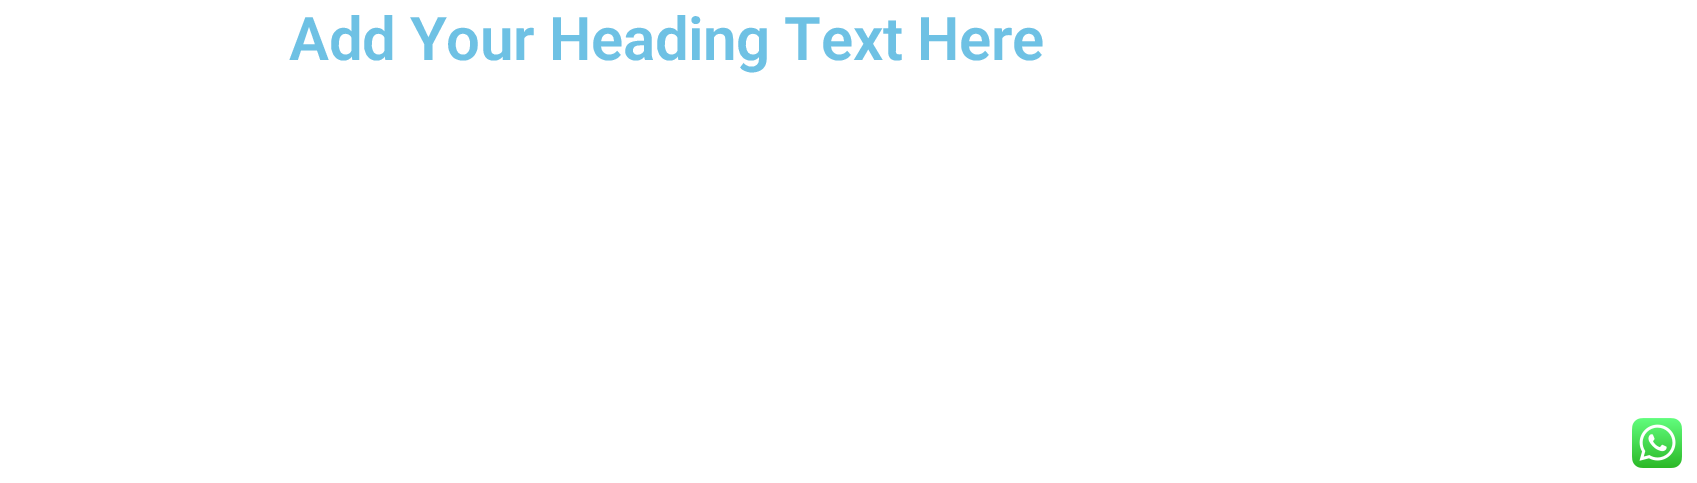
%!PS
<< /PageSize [1697 483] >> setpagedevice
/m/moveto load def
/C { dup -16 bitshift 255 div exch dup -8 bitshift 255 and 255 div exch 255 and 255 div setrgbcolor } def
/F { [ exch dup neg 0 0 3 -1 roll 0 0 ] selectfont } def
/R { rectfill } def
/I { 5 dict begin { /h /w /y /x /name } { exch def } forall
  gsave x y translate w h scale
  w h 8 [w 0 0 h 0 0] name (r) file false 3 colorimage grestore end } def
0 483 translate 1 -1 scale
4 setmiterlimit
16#FFFFFF C
0 0 1697 483 R
/Roboto-SemiBold 60 F
16#6EC1E4 C
289 60 m -.4 0 (Add Your Heading Text Here) ashow
(1.rgb) 1632 418 50 50 I
showpage
